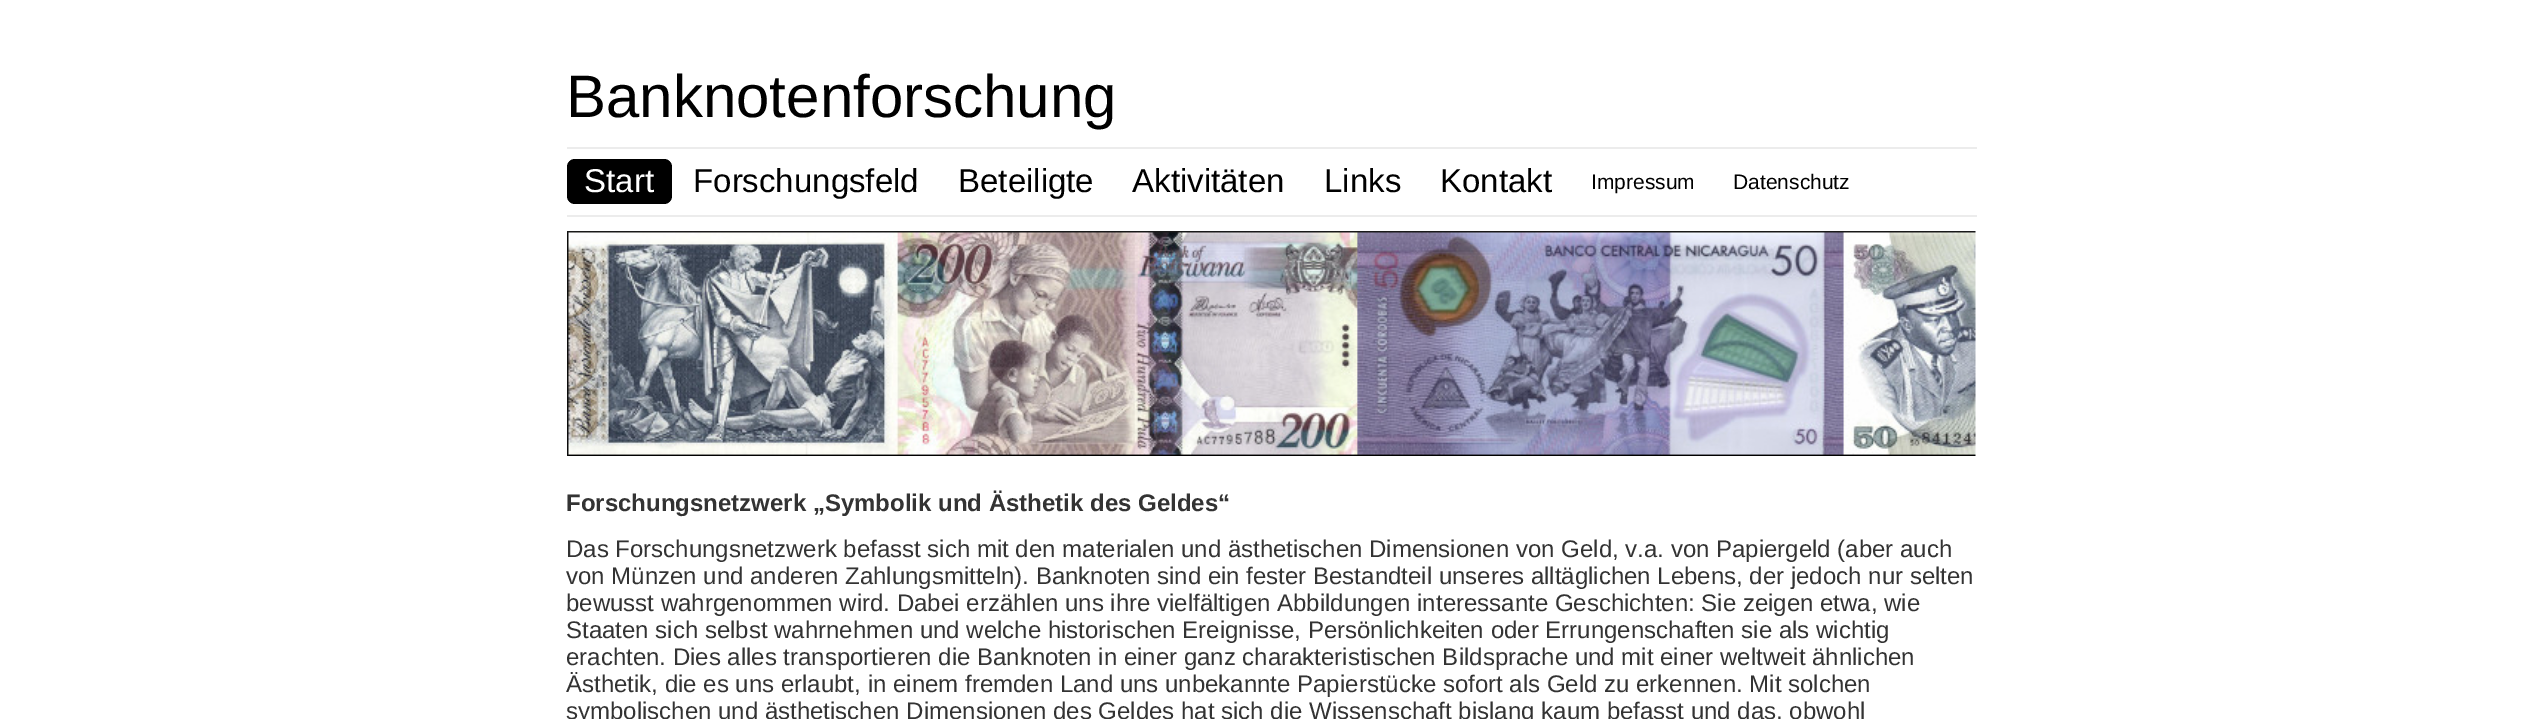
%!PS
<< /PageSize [2542 719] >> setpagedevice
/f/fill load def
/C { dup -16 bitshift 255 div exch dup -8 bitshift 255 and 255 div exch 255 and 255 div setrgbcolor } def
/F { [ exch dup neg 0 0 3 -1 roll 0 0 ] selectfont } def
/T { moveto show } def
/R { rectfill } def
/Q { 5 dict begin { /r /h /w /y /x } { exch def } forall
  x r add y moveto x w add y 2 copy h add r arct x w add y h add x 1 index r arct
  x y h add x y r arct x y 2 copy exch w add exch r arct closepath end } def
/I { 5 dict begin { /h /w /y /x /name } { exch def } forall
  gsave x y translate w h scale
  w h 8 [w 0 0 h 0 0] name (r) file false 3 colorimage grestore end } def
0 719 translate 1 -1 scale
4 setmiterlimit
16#FFFFFF C
0 0 2542 719 R
/LiberationSans-Regular 60 F
16#000000 C
(Banknotenforschung) 566 117 T
16#ECECEC C
567 147 1410 2 R
567 215 1410 2 R
16#000000 C
567 159 105 45 8 Q f
/LiberationSans-Regular 33 F
16#FFFFFF C
(Start) 584 192 T
16#000000 C
(Forschungsfeld) 693 192 T
(Beteiligte) 958 192 T
(Aktivitäten) 1132 192 T
(Links) 1324 192 T
(Kontakt) 1440 192 T
/LiberationSans-Regular 21 F
(Impressum) 1591 189 T
(Datenschutz) 1733 189 T
(1.rgb) 567 231 1409 225 I
/LiberationSans-Bold 24 F
16#333333 C
(Forschungsnetzwerk „Symbolik und Ästhetik des Geldes“) 566 511 T
/LiberationSans-Regular 24 F
(Das Forschungsnetzwerk befasst sich mit den materialen und ästhetischen Dimensionen von Geld, v.a. von Papiergeld \(aber auch) 566 557 T
(von Münzen und anderen Zahlungsmitteln\). Banknoten sind ein fester Bestandteil unseres alltäglichen Lebens, der jedoch nur selten) 566 584 T
(bewusst wahrgenommen wird. Dabei erzählen uns ihre vielfältigen Abbildungen interessante Geschichten: Sie zeigen etwa, wie) 566 611 T
(Staaten sich selbst wahrnehmen und welche historischen Ereignisse, Persönlichkeiten oder Errungenschaften sie als wichtig) 566 638 T
(erachten. Dies alles transportieren die Banknoten in einer ganz charakteristischen Bildsprache und mit einer weltweit ähnlichen) 566 665 T
(Ästhetik, die es uns erlaubt, in einem fremden Land uns unbekannte Papierstücke sofort als Geld zu erkennen. Mit solchen) 566 692 T
(symbolischen und ästhetischen Dimensionen des Geldes hat sich die Wissenschaft bislang kaum befasst und das, obwohl) 566 719 T
showpage
